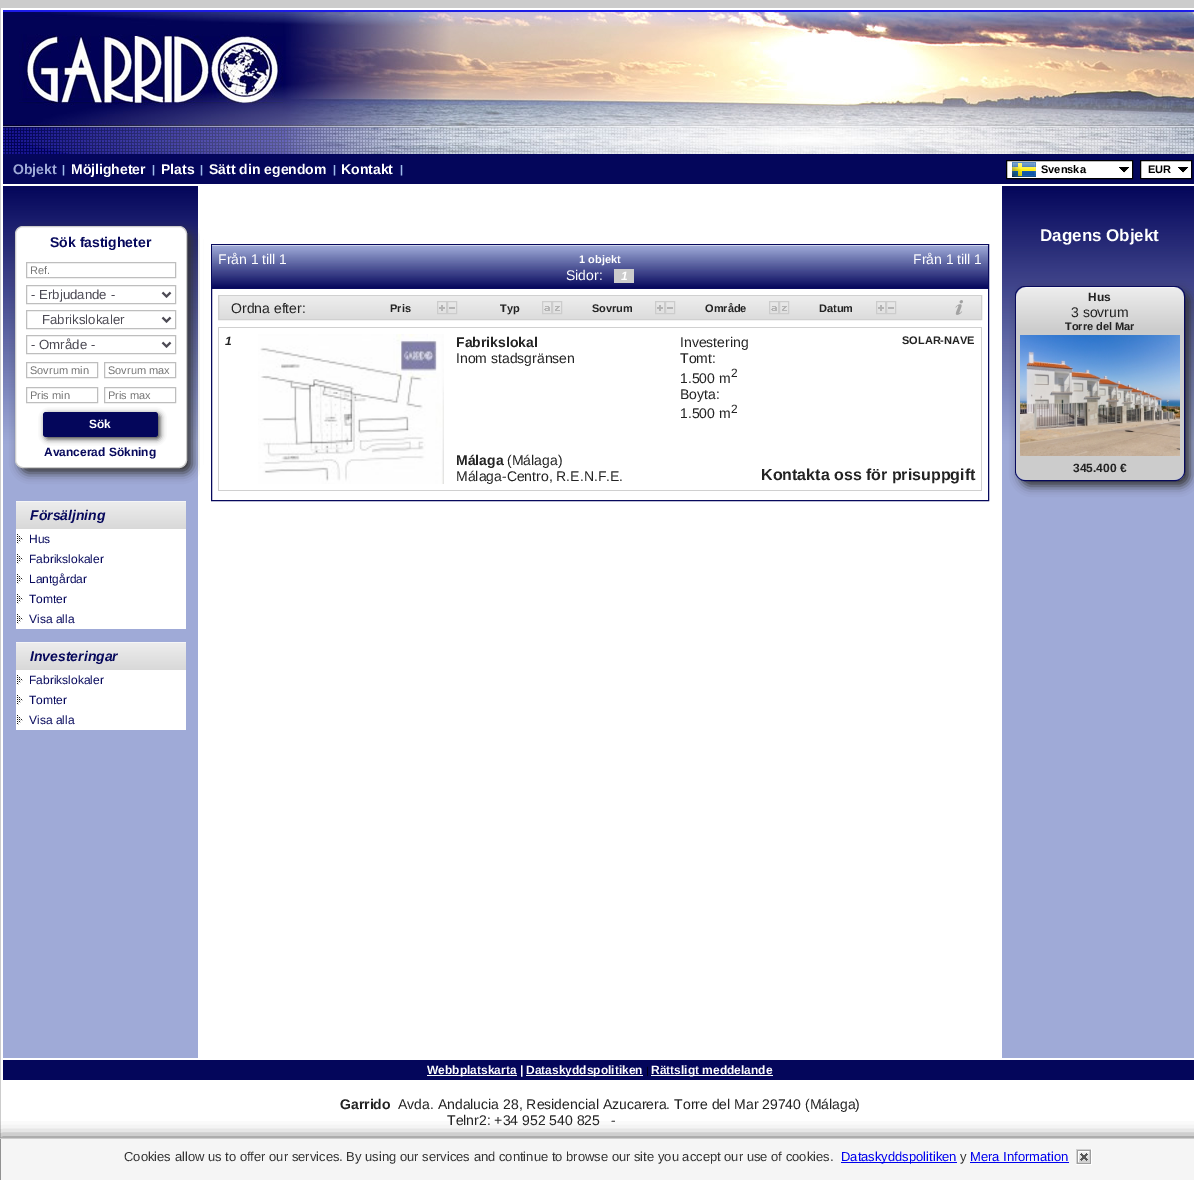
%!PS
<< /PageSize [1194 1180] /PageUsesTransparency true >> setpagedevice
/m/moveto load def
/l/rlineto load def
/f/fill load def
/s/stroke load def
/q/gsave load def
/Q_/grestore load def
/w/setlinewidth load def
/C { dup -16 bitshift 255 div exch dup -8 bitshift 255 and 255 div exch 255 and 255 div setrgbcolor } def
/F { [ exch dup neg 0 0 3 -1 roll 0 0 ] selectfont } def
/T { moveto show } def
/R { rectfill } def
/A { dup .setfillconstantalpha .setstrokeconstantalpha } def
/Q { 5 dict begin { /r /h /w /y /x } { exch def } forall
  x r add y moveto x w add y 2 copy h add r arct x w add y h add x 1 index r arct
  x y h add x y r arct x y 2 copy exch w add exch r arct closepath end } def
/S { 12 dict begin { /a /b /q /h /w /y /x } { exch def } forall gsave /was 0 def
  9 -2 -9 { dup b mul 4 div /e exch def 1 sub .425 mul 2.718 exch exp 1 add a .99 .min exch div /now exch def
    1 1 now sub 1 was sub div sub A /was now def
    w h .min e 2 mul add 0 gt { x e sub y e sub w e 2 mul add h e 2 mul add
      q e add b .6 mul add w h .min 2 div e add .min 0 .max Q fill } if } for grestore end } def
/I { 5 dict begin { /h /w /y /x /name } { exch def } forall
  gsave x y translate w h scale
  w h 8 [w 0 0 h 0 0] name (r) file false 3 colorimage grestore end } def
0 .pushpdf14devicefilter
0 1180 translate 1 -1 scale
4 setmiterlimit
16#CCCCCC C
0 0 1194 1180 R
16#FFFFFF C
1 8 1193 1130 R
(1.rgb) 3 10 1191 144 I
(2.rgb) 299 10 6 144 I
16#04065B C
3 154 1191 30 R
/LiberationSans-Bold 14 F
16#9FAAD7 C
(Objekt) 13 174 T
/LiberationSans-Bold 11 F
16#9EBBEA C
(|) 62 173 T
/LiberationSans-Bold 14 F
16#FFFFFF C
(Möjligheter) 71 174 T
/LiberationSans-Bold 11 F
16#9EBBEA C
(|) 152 173 T
/LiberationSans-Bold 14 F
16#FFFFFF C
(Plats) 161 174 T
/LiberationSans-Bold 11 F
16#9EBBEA C
(|) 200 173 T
/LiberationSans-Bold 14 F
16#FFFFFF C
(Sätt din egendom) 209 174 T
/LiberationSans-Bold 11 F
16#9EBBEA C
(|) 333 173 T
/LiberationSans-Bold 14 F
16#FFFFFF C
(Kontakt) 341 174 T
/LiberationSans-Bold 11 F
16#9EBBEA C
(|) 400 173 T
16#FFFFFF C
1007 161 125 17 R
(3.rgb) 1119 167 11 6 I
16#000000 C
1006.5 160.5 126 18 rectstroke
(4.rgb) 1012 162 24 15 I
(Svenska) 1041 173 T
16#FFFFFF C
1141 161 50 17 R
(3.rgb) 1178 167 11 6 I
16#000000 C
1140.5 160.5 51 18 rectstroke
(EUR) 1148 173 T
(5.rgb) 3 186 195 872 I
16#333333 C
20 231 172 242 8 5 1 S
16#FFFFFF C
15.5 226.5 171 241 7.5 Q q f Q_
16#CCCCCC C
s
/LiberationSans-Bold 14 F
16#07095C C
(Sök fastigheter) 50 247 T
16#BEBEBE C
26.5 262.5 149 15 rectstroke
/LiberationSans-Regular 11 F
16#757575 C
(Ref.) 30 274 T
16#BEBEBE C
26.5 285.5 149 18 rectstroke
16#4C4A54 C
2 w
162.5 292.5 m 4 4 l 4 -4 l s
/LiberationSans-Regular 13.25 F
(- Erbjudande -) 31 299 T
16#BEBEBE C
1 w
26.5 310.5 149 18 rectstroke
16#4C4A54 C
2 w
162.5 317.5 m 4 4 l 4 -4 l s
(Fabrikslokaler) 42 324 T
16#BEBEBE C
1 w
26.5 335.5 149 18 rectstroke
16#4C4A54 C
2 w
162.5 342.5 m 4 4 l 4 -4 l s
(- Område -) 31 349 T
16#BEBEBE C
1 w
26.5 362.5 71 15 rectstroke
/LiberationSans-Regular 11 F
16#757575 C
(Sovrum min) 30 374 T
16#BEBEBE C
104.5 362.5 71 15 rectstroke
16#757575 C
(Sovrum max) 108 374 T
16#BEBEBE C
26.5 387.5 71 15 rectstroke
16#757575 C
(Pris min) 30 399 T
16#BEBEBE C
104.5 387.5 71 15 rectstroke
16#757575 C
(Pris max) 108 399 T
16#333333 C
45 414 115 25 3 3 1 S
16#04065B C
43 412 115 25 3 Q f
/LiberationSans-Bold 12 F
16#FFFFFF C
(Sök) 89 428 T
16#07095C C
(Avancerad Sökning) 44 456 T
(6.rgb) 16 501 170 28 I
/LiberationSans-BoldItalic 14 F
(Försäljning) 30 520 T
16#FFFFFF C
16 529 170 100 R
(7.rgb) 17 534 6 10 I
/LiberationSans-Regular 12 F
16#07095C C
(Hus) 29 543 T
(7.rgb) 17 554 6 10 I
(Fabrikslokaler) 29 563 T
(7.rgb) 17 574 6 10 I
(Lantgårdar) 29 583 T
(7.rgb) 17 594 6 10 I
(Tomter) 29 603 T
(7.rgb) 17 614 6 10 I
(Visa alla) 29 623 T
(6.rgb) 16 642 170 28 I
/LiberationSans-BoldItalic 14 F
(Investeringar) 30 661 T
16#FFFFFF C
16 670 170 60 R
(7.rgb) 17 675 6 10 I
/LiberationSans-Regular 12 F
16#07095C C
(Fabrikslokaler) 29 684 T
(7.rgb) 17 695 6 10 I
(Tomter) 29 704 T
(7.rgb) 17 715 6 10 I
(Visa alla) 29 724 T
16#FFFFFF C
200 231 3 242 R
16#07095C C
211.5 244.5 777 256 rectstroke
(8.rgb) 212 245 776 44 I
/LiberationSans-Regular 14 F
16#FFFFFF C
(Från 1 till 1) 218 264 T
/LiberationSans-Bold 11 F
(1 objekt) 579 263 T
/LiberationSans-Regular 14 F
(Från 1 till 1) 913 264 T
(Sidor:) 566 280 T
16#CCCCCC C
614 269 20 14 R
/LiberationSans-BoldItalic 12 F
16#FFFFFF C
(1) 621 280 T
(9.rgb) 219 296 762 23 I
16#D0D0D0 C
218.5 295.5 763 24 rectstroke
/LiberationSans-Regular 14 F
16#232323 C
(Ordna efter:) 231 313 T
/LiberationSans-Bold 11 F
(Pris) 390 312 T
16#CCCCCC C
437.5 301.5 9 12 rectstroke
(10.rgb) 439 305 6 6 I
447.5 301.5 9 12 rectstroke
16#B4B4B4 C
449 307 6 2 R
16#232323 C
(Typ) 500 312 T
16#CCCCCC C
542.5 301.5 9 12 rectstroke
(11.rgb) 544 306 6 5 I
552.5 301.5 9 12 rectstroke
(12.rgb) 555 306 5 5 I
16#232323 C
(Sovrum) 592 312 T
16#CCCCCC C
655.5 301.5 9 12 rectstroke
(10.rgb) 657 305 6 6 I
665.5 301.5 9 12 rectstroke
16#B4B4B4 C
667 307 6 2 R
16#232323 C
(Område) 705 312 T
16#CCCCCC C
769.5 301.5 9 12 rectstroke
(11.rgb) 771 306 6 5 I
779.5 301.5 9 12 rectstroke
(12.rgb) 782 306 5 5 I
16#232323 C
(Datum) 819 312 T
16#CCCCCC C
876.5 301.5 9 12 rectstroke
(10.rgb) 878 305 6 6 I
886.5 301.5 9 12 rectstroke
16#B4B4B4 C
888 307 6 2 R
(13.rgb) 955 300 8 15 I
16#D0D0D0 C
218 327 764 164 R
16#FFFFFF C
219 328 762 162 R
/LiberationSans-BoldItalic 12 F
16#232323 C
(1) 225 345 T
(14.rgb) 258 334 186 150 I
/LiberationSans-Bold 14 F
(Fabrikslokal) 456 347 T
/LiberationSans-Regular 14 F
(Inom stadsgränsen) 456 363 T
(Investering) 680 347 T
(Tomt:) 680 363 T
(1.500 m) 680 383 T
/LiberationSans-Regular 12 F
(2) 731 377 T
/LiberationSans-Regular 14 F
(Boyta:) 680 399 T
(1.500 m) 680 418 T
/LiberationSans-Regular 12 F
(2) 731 413 T
/LiberationSans-Bold 11 F
(SOLAR-NAVE) 902 344 T
/LiberationSans-Bold 14 F
(Málaga) 456 465 T
/LiberationSans-Regular 14 F
(\(Málaga\)) 507 465 T
(Málaga-Centro, R.E.N.F.E.) 456 481 T
/LiberationSans-Bold 16 F
(Kontakta oss för prisuppgift) 761 480 T
(15.rgb) 1002 186 192 872 I
/LiberationSans-Bold 17 F
16#FFFFFF C
(Dagens Objekt) 1040 241 T
16#333333 C
1020 291 170 195 10 5 1 S
16#07095C C
1015.5 286.5 169 194 9.5 Q s
(16.rgb) 1016 287 168 193 I
/LiberationSans-Bold 12 F
16#232323 C
(Hus) 1088 301 T
/LiberationSans-Regular 14 F
(3 sovrum) 1071 317 T
/LiberationSans-Bold 11 F
(Torre del Mar) 1065 330 T
(17.rgb) 1020 335 160 121 I
/LiberationSans-Bold 12 F
(345.400 €) 1073 472 T
16#04065B C
3 1060 1191 20 R
16#FFFFFF C
427 1075 90 1 R
(Webbplatskarta) 427 1074 T
(|) 520 1074 T
526 1075 117 1 R
(Dataskyddspolitiken) 526 1074 T
/LiberationSans-Regular 10 F
16#000000 C
(|) 646 1074 T
16#FFFFFF C
651 1075 122 1 R
/LiberationSans-Bold 12 F
(Rättsligt meddelande) 651 1074 T
/LiberationSans-Bold 14 F
16#232323 C
(Garrido) 340 1109 T
/LiberationSans-Regular 14 F
(Avda. Andalucia 28, Residencial Azucarera. Torre del Mar 29740 \(Málaga\)) 398 1109 T
(Telnr2: +34 952 540 825) 447 1125 T
(-) 611 1125 T
16#555555 C
0 1138 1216 42 0 7.5 1 S
16#F5F5F5 C
1 1139 1193 41 R
16#CCCCCC C
0 1138 1194 1 R
/LiberationSans-Regular 13 F
16#333333 C
(Cookies allow us to offer our services. By using our services and continue to browse our site you accept our use of cookies.) 124 1161 T
16#0000EE C
841 1162 116 1 R
(Dataskyddspolitiken) 841 1161 T
16#333333 C
(y) 960 1161 T
16#0000EE C
(Mera Information) 970 1161 T
970 1162 99 1 R
(18.rgb) 1076 1149 16 16 I
.poppdf14devicefilter showpage
